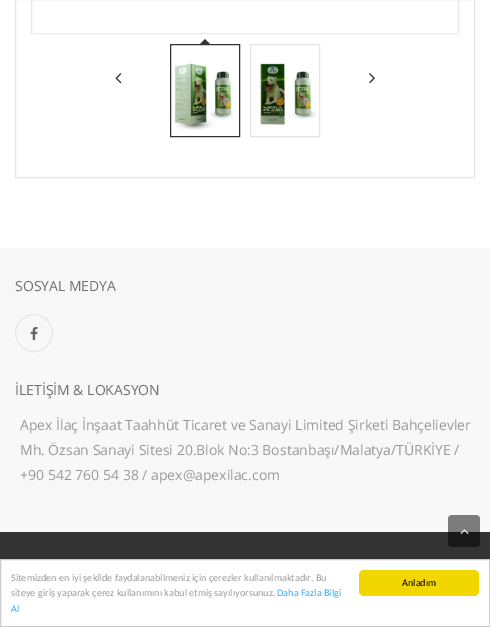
%!PS
<< /PageSize [490 627] /PageUsesTransparency true >> setpagedevice
/m/moveto load def
/l/rlineto load def
/z/closepath load def
/f/fill load def
/s/stroke load def
/C { dup -16 bitshift 255 div exch dup -8 bitshift 255 and 255 div exch 255 and 255 div setrgbcolor } def
/F { [ exch dup neg 0 0 3 -1 roll 0 0 ] selectfont } def
/T { moveto show } def
/R { rectfill } def
/A { dup .setfillconstantalpha .setstrokeconstantalpha } def
/O { newpath 0 360 arc closepath } def
/Q { 5 dict begin { /r /h /w /y /x } { exch def } forall
  x r add y moveto x w add y 2 copy h add r arct x w add y h add x 1 index r arct
  x y h add x y r arct x y 2 copy exch w add exch r arct closepath end } def
/I { 5 dict begin { /h /w /y /x /name } { exch def } forall
  gsave x y translate w h scale
  w h 8 [w 0 0 h 0 0] name (r) file false 3 colorimage grestore end } def
0 .pushpdf14devicefilter
0 627 translate 1 -1 scale
4 setmiterlimit
16#FFFFFF C
0 0 490 627 R
16#E5E5E5 C
15.5 -.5 459 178 rectstroke
16#E9E9E9 C
31.5 -.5 427 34 rectstroke
(1.rgb) 115 73 7 11 I
16#333333 C
170.5 44.5 69 92 rectstroke
210 44 m -10 0 l 5 -5 l z f
(2.rgb) 174 63 60 67 I
16#E5E5E5 C
250.5 44.5 69 92 rectstroke
(3.rgb) 260 63 57 62 I
(4.rgb) 369 73 6 11 I
16#F8F8F8 C
0 248 490 284 R
/OpenSans-Regular 14 F
16#6F6F6F C
(SOSYAL MEDYA) 15 291 T
16#E5E5E5 C
34 333 18.5 O s
(5.rgb) 30 327 8 13 I
16#6F6F6F C
(İLETİŞİM & LOKASYON) 15 395 T
16#999999 C
(Apex İlaç İnşaat Taahhüt Ticaret ve Sanayi Limited Şirketi Bahçelievler) 20 430 T
(Mh. Özsan Sanayi Sitesi 20.Blok No:3 Bostanbaşı/Malatya/TÜRKİYE /) 20 455 T
(+90 542 760 54 38 / apex@apexilac.com) 20 480 T
16#333333 C
0 532 490 27 R
0.5 A
16#000000 C
448 515 32 32 4 Q f
1 A
(6.rgb) 460 529 9 5 I
16#CCCCCC C
.5 559.5 489 67 rectstroke
/Carlito-Regular 10.2 F
16#999999 C
(Sitemizden en iyi şekilde faydalanabilmeniz için çerezler kullanılmaktadır. Bu) 11 581 T
(siteye giriş yaparak çerez kullanımını kabul etmiş sayılıyorsunuz.) 11 596 T
16#31A8F0 C
(Daha Fazla Bilgi) 277 596 T
(Al) 11 612 T
16#F1D600 C
359 570 120 26 5 Q f
16#000000 C
(Anladım) 402 586 T
.poppdf14devicefilter showpage
